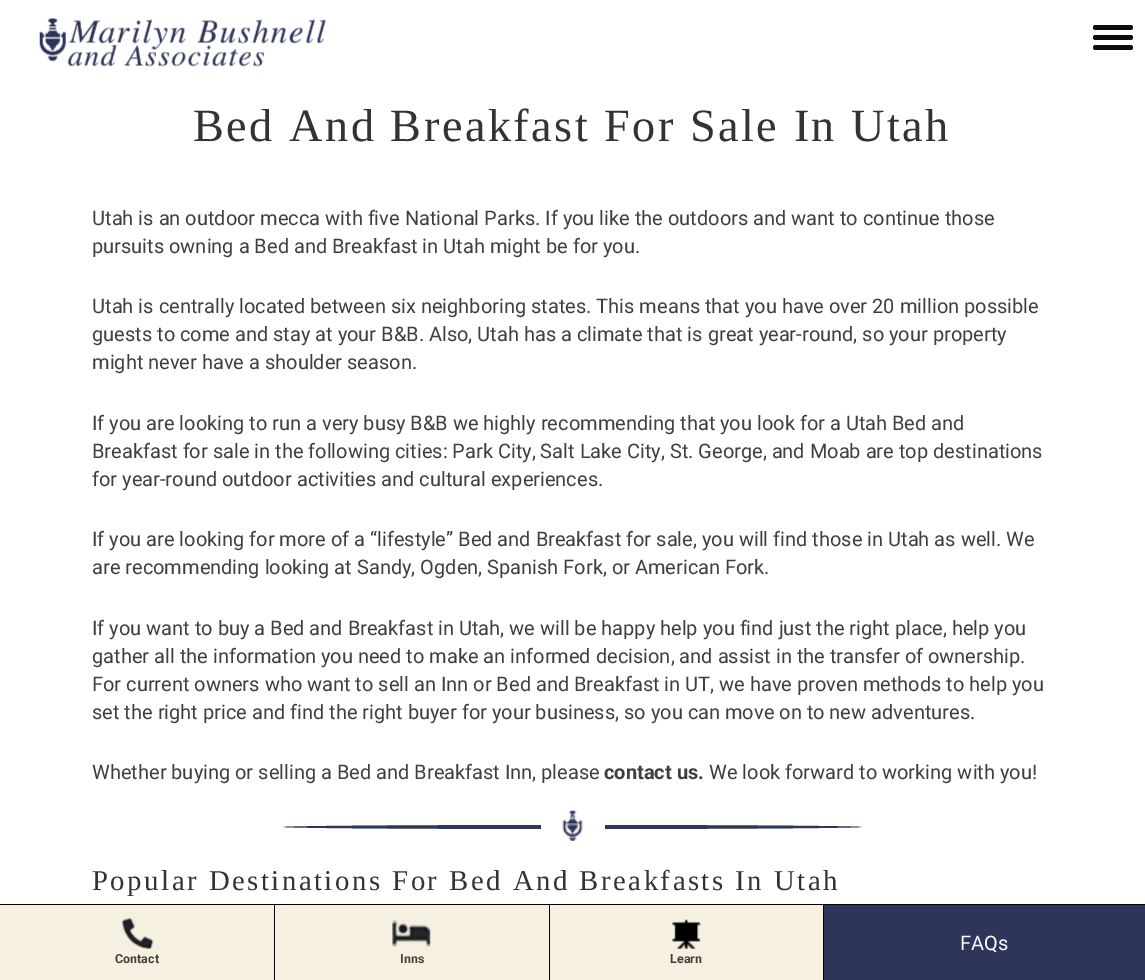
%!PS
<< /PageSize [1145 980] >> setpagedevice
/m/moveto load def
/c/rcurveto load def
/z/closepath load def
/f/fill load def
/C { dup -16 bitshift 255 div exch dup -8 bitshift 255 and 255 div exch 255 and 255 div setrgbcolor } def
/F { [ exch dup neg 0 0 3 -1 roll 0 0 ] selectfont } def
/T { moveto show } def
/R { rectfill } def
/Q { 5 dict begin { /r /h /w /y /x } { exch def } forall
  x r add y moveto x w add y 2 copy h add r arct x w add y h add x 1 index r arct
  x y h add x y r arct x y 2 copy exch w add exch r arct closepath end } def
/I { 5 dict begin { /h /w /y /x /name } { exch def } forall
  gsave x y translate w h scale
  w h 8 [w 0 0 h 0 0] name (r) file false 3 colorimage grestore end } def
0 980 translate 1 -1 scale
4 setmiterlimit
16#FFFFFF C
0 0 1145 980 R
(1.rgb) 39 18 287 49 I
16#0D0D0D C
1093 25 40 5 2.5 Q f
1093 35 40 5 2.5 Q f
1093 45 40 5 2.5 Q f
/LiberationSerif-Regular 46.25 F
16#333333 C
193 141 m 2.5 0 (Bed And Breakfast For Sale In Utah) ashow
/Roboto-Regular 20 F
16#413F3D C
(Utah is an outdoor mecca with five National Parks. If you like the outdoors and want to continue those) 92 225 T
(pursuits owning a Bed and Breakfast in Utah might be for you.) 92 253 T
(Utah is centrally located between six neighboring states. This means that you have over 20 million possible) 92 313 T
(guests to come and stay at your B&B. Also, Utah has a climate that is great year-round, so your property) 92 341 T
(might never have a shoulder season.) 92 369 T
(If you are looking to run a very busy B&B we highly recommending that you look for a Utah Bed and) 92 430 T
(Breakfast for sale in the following cities: Park City, Salt Lake City, St. George, and Moab are top destinations) 92 458 T
(for year-round outdoor activities and cultural experiences.) 92 486 T
(If you are looking for more of a “lifestyle” Bed and Breakfast for sale, you will find those in Utah as well. We) 92 546 T
(are recommending looking at Sandy, Ogden, Spanish Fork, or American Fork.) 92 574 T
(If you want to buy a Bed and Breakfast in Utah, we will be happy help you find just the right place, help you) 92 635 T
(gather all the information you need to make an informed decision, and assist in the transfer of ownership.) 92 663 T
(For current owners who want to sell an Inn or Bed and Breakfast in UT, we have proven methods to help you) 92 691 T
(set the right price and find the right buyer for your business, so you can move on to new adventures.) 92 719 T
(Whether buying or selling a Bed and Breakfast Inn, please) 92 779 T
/Roboto-Bold 20 F
(contact us.) 604 779 T
/Roboto-Regular 20 F
(We look forward to working with you!) 709 779 T
16#2D355A C
572.5 825 m 159.5 0 289 1 289 2 c 0 1 -129.5 2 -289 2 c -159.5 0 -289 -1 -289 -2 c 0 -1 129.5 -2 289 -2 c z f
16#FFFFFF C
541 825 64 4 R
(2.rgb) 562 810 21 31 I
/LiberationSerif-Regular 28.75 F
16#333333 C
92 890 m 2.5 0 (Popular Destinations For Bed And Breakfasts In Utah) ashow
16#F6F0E0 C
0 905 823 75 R
16#000000 C
0 904 1145 1 R
16#2D355A C
824 905 321 75 R
16#000000 C
823 905 1 75 R
/Roboto-Regular 20 F
16#FFFFFF C
(FAQs) 960 950 T
(3.rgb) 122 918 32 31 I
/Roboto-Bold 12.5 F
16#413F3D C
(Contact) 115 963 T
16#000000 C
274 905 1 75 R
(4.rgb) 392 919 39 28 I
16#413F3D C
(Inns) 400 963 T
16#000000 C
549 905 1 75 R
(5.rgb) 672 919 29 30 I
16#413F3D C
(Learn) 670 963 T
showpage
